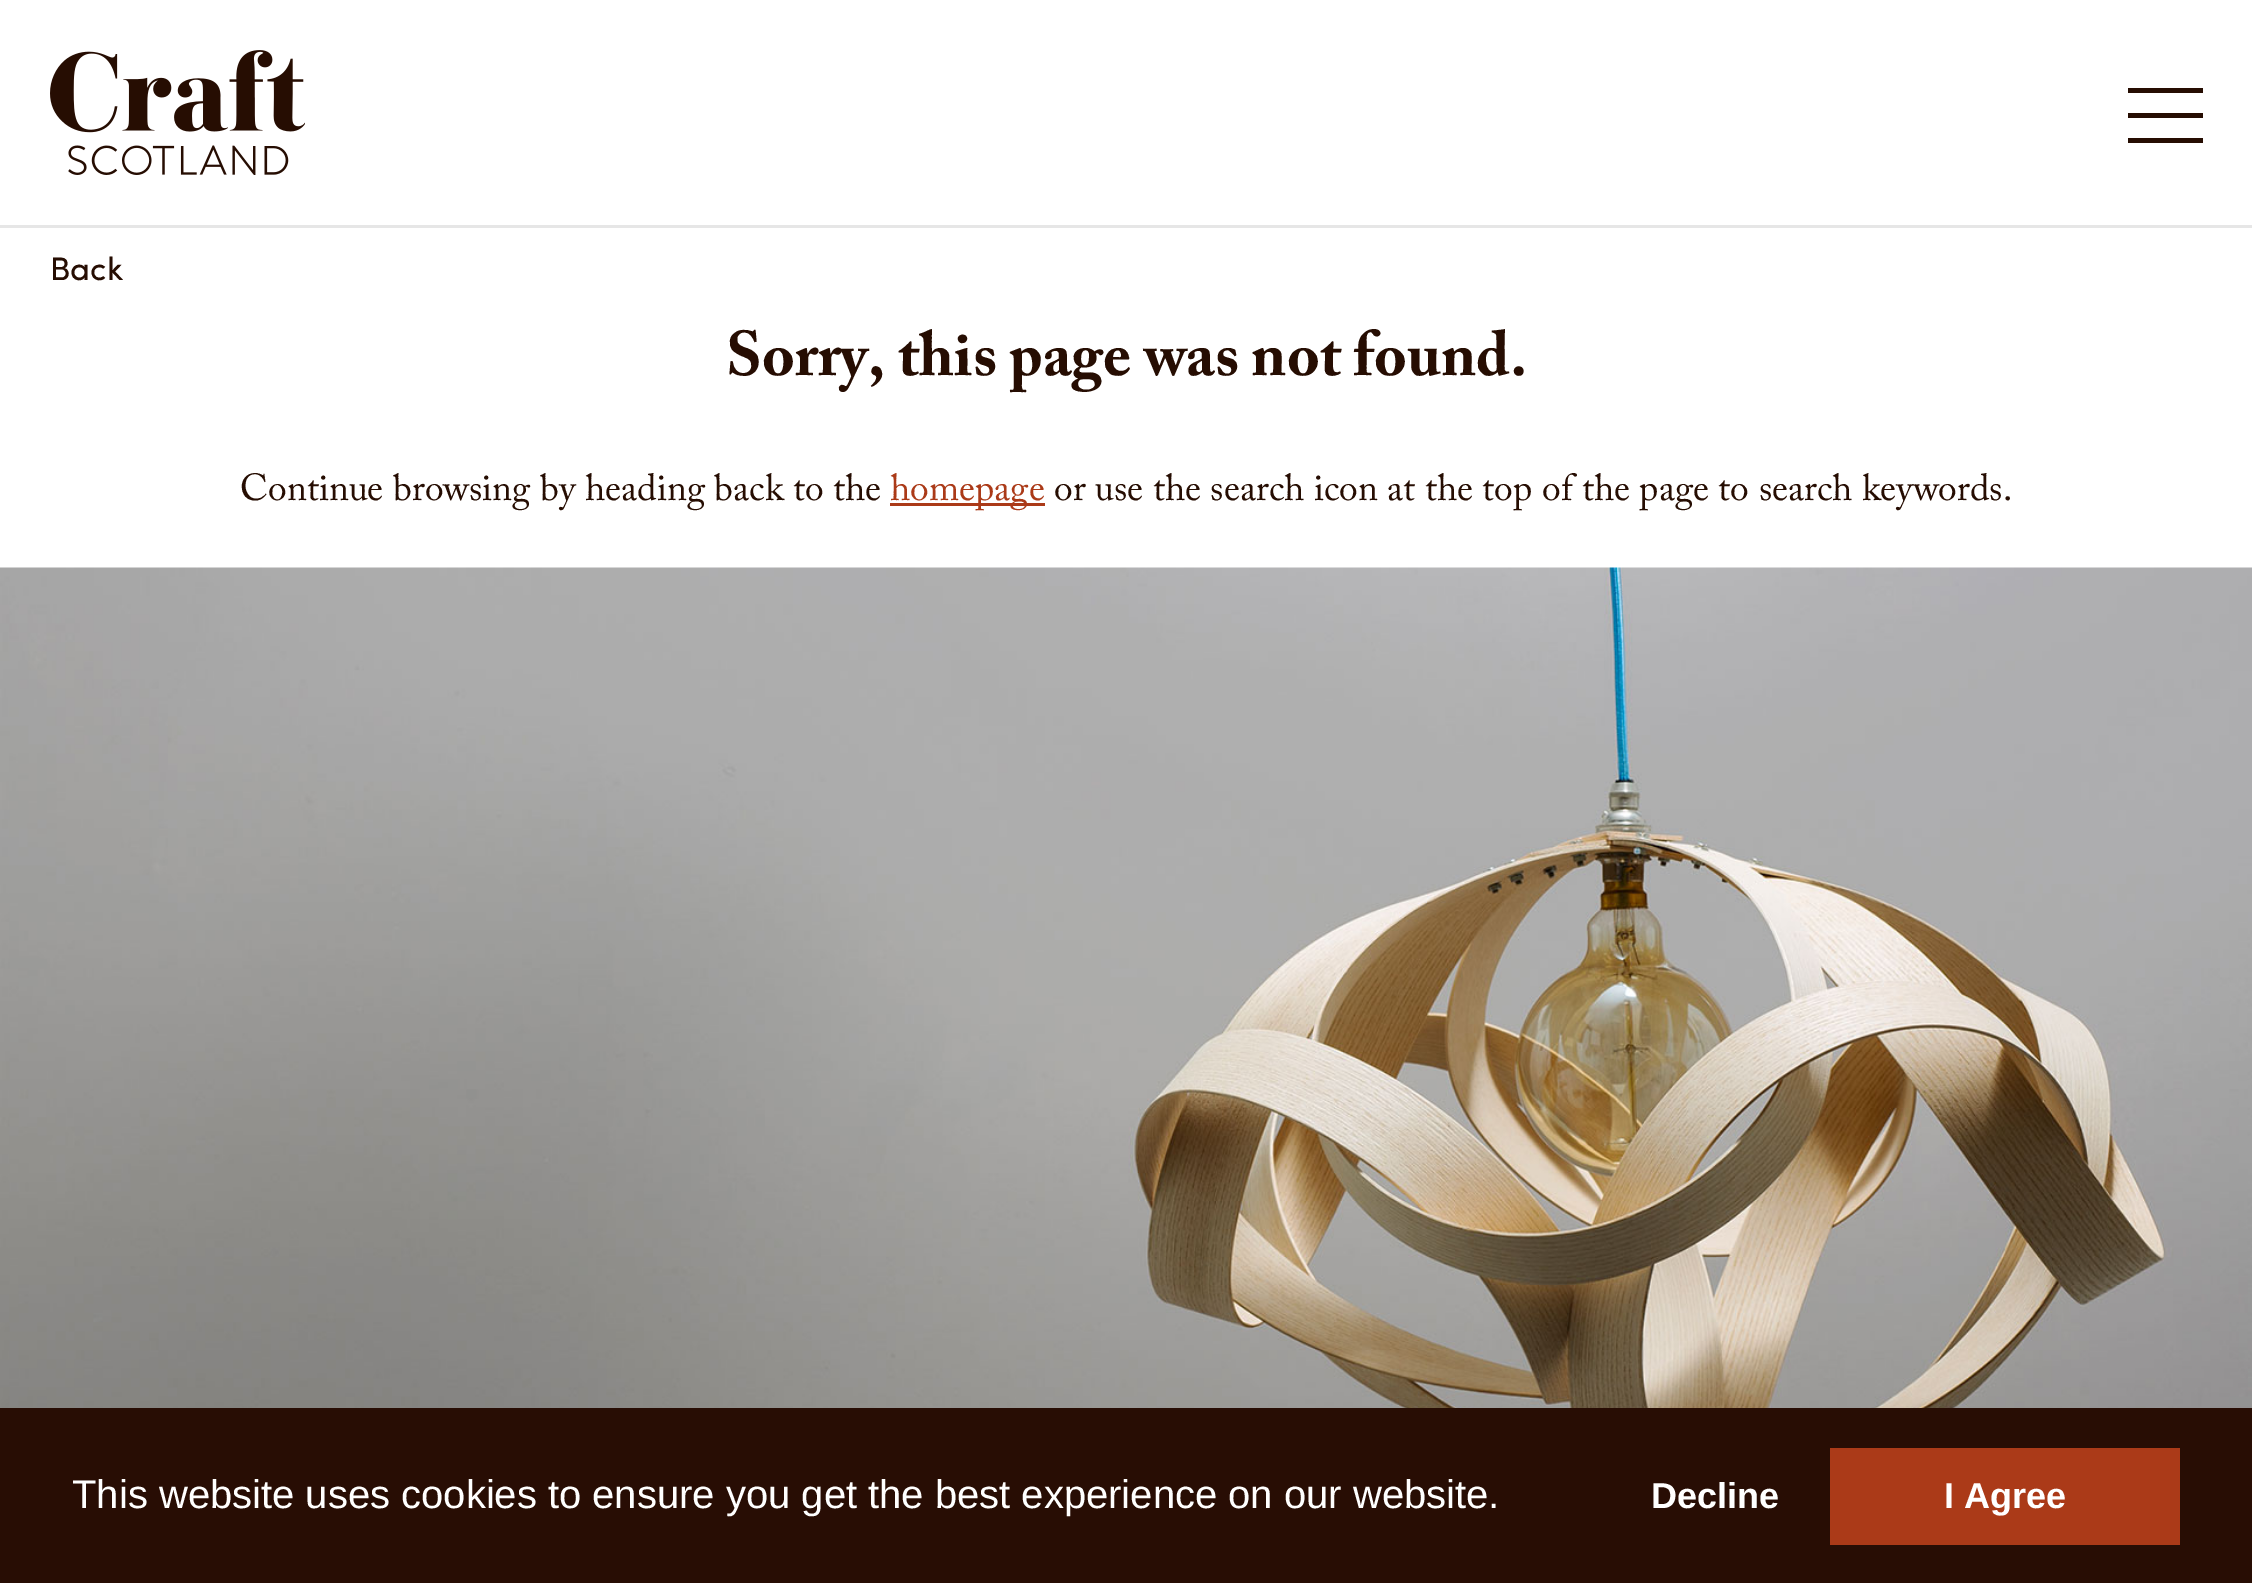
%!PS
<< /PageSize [2252 1583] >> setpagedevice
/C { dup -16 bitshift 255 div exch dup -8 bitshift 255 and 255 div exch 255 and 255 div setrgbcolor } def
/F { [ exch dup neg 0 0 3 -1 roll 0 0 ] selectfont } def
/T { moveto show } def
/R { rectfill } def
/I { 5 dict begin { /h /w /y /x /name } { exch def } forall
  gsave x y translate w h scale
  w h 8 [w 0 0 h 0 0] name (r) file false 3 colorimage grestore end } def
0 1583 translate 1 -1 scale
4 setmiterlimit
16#FFFFFF C
0 0 2252 1583 R
16#E6E6E6 C
0 225 2252 3 R
(1.rgb) 50 50 255 125 I
16#260D02 C
2128 88 75 5 R
2128 113 75 5 R
2128 138 75 5 R
/Sofia-Regular 32.5 F
(Back) 50 280 T
/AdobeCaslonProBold-Bold 62.5 F
(Sorry, this page was not found.) 726 375 T
/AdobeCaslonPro-Regular 37.5 F
(Continue browsing by heading back to the) 240 500 T
16#AB3A18 C
890 503 155 3 R
(homepage) 890 500 T
16#260D02 C
(or use the search icon at the top of the page to search keywords.) 1054 500 T
(2.rgb) 0 567 2252 841 I
16#280D04 C
0 1408 2252 175 R
/LiberationSans-Regular 40 F
16#FFFFFF C
(This website uses cookies to ensure you get the best experience on our website.) 72 1508 T
/LiberationSans-Bold 36 F
(Decline) 1651 1508 T
16#AB3A18 C
1830 1448 350 97 R
16#FFFFFF C
(I Agree) 1944 1508 T
showpage
